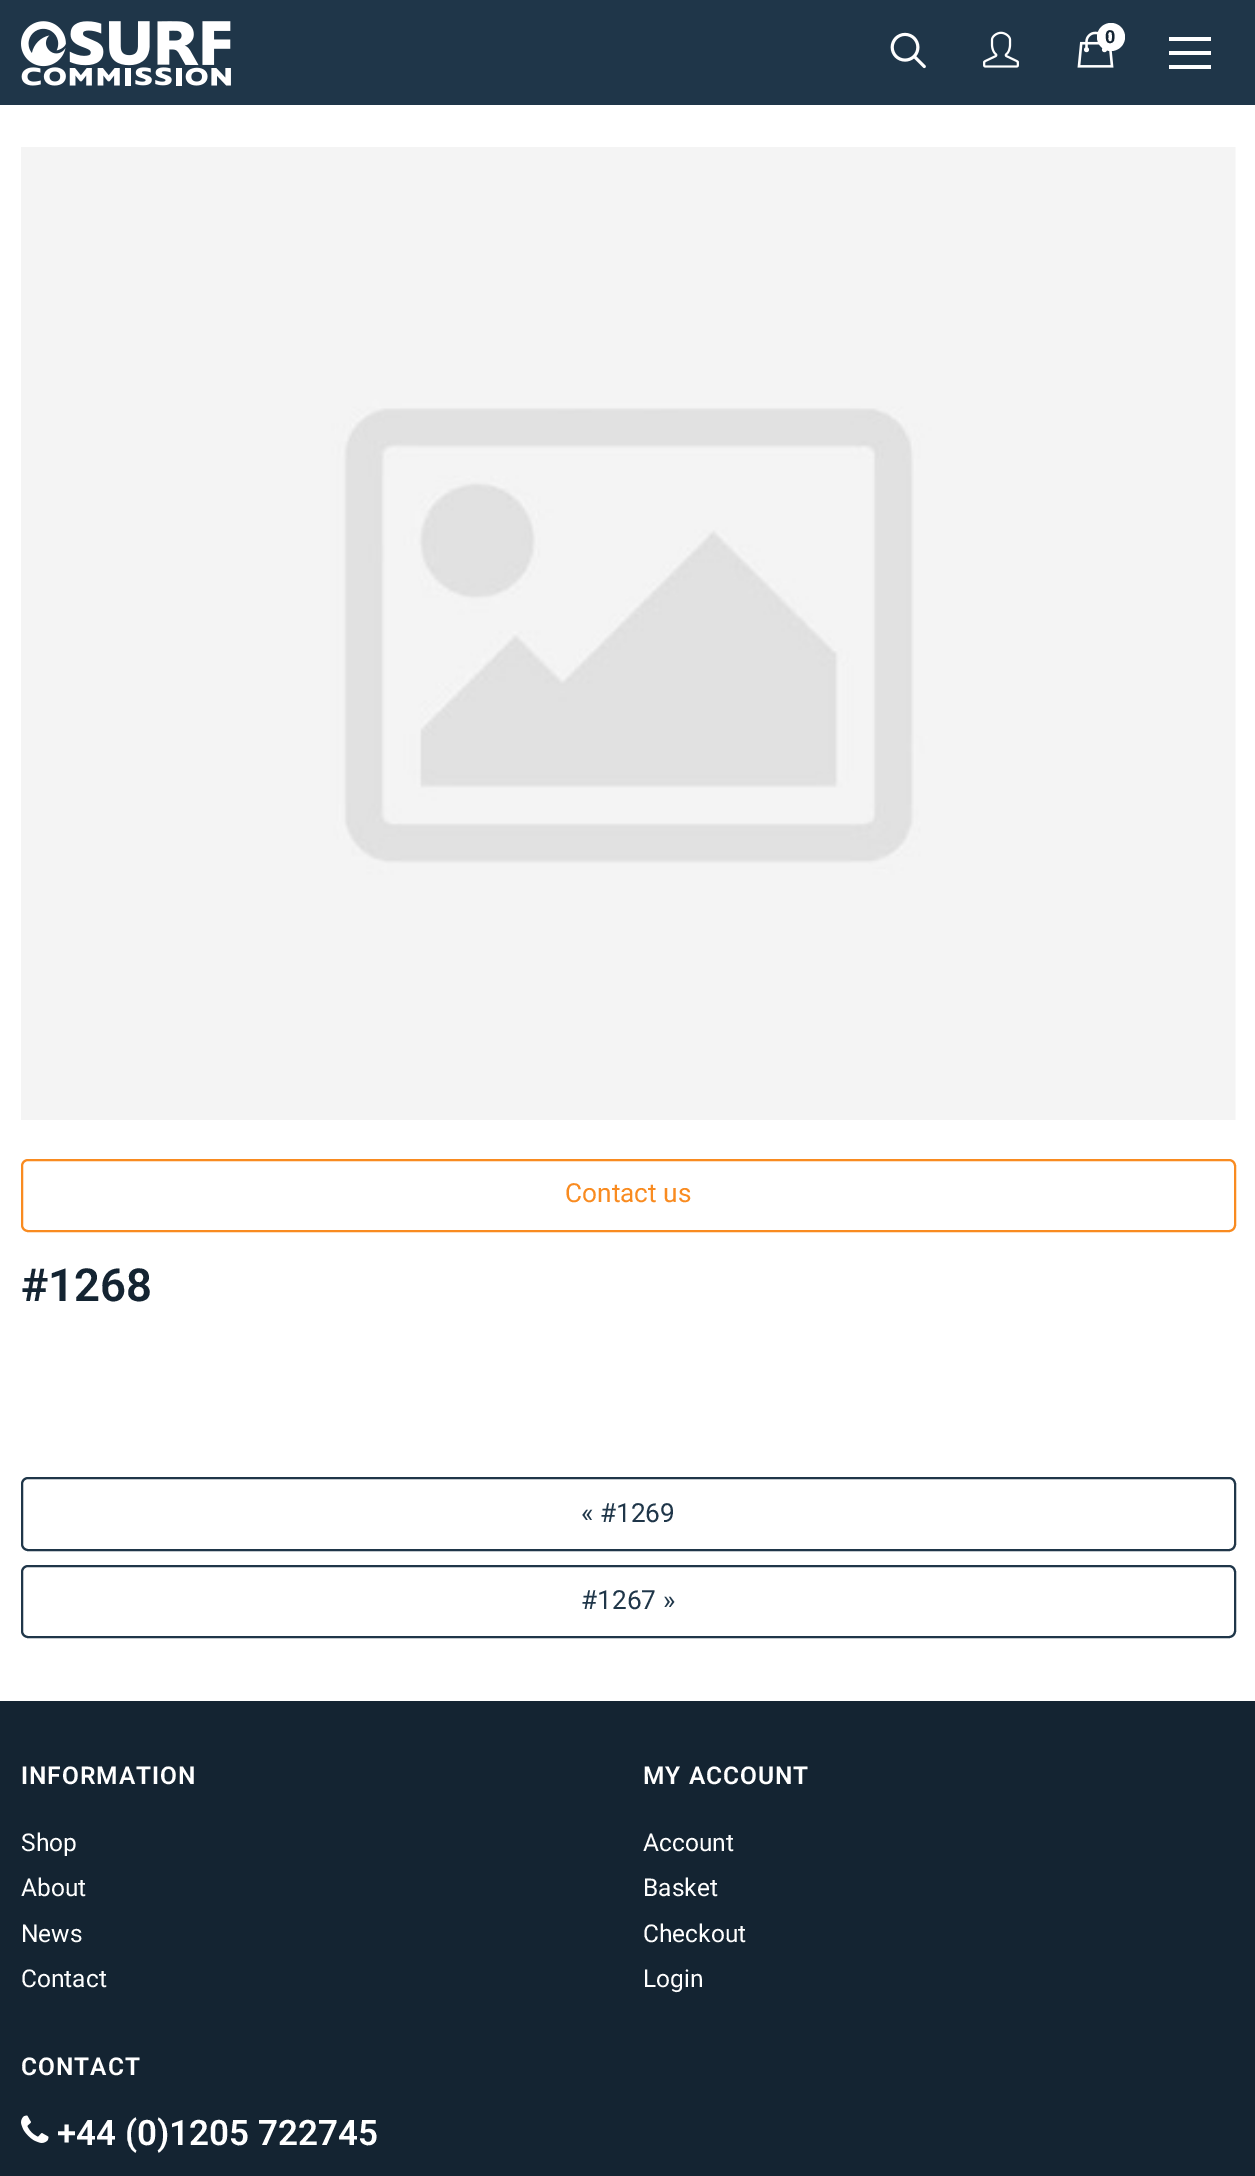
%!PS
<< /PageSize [1255 2176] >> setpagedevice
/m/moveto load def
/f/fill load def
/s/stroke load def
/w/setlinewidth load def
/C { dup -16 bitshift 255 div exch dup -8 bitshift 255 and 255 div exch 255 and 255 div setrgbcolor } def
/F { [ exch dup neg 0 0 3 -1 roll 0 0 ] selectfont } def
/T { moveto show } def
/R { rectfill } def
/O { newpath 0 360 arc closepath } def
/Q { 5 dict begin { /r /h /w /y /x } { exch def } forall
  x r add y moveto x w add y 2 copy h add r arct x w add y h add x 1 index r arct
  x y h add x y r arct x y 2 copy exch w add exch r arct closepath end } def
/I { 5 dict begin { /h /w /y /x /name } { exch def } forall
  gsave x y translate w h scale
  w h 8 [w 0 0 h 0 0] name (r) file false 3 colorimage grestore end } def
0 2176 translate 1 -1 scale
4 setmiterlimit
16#FFFFFF C
0 0 1255 2176 R
16#1F3649 C
0 0 1255 105 R
(1.rgb) 21 21 210 65 I
(2.rgb) 890 32 36 37 I
(3.rgb) 983 31 36 37 I
(4.rgb) 1077 31 37 37 I
16#FFFFFF C
1111 37 14 O f
/Roboto-Bold 18 F
16#142432 C
(0) 1105 43 T
16#FFFFFF C
1169 51 42 4 R
1169 37 42 4 R
1169 65 42 4 R
(5.rgb) 21 147 1215 973 I
16#F98B20 C
2 w
22 1160 1213 71 6 Q s
/Roboto-Regular 26.25 F
(Contact us) 565 1202 T
/Roboto-SemiBold 45.5 F
16#142432 C
(#1268) 21 1301 T
16#1F3649 C
22 1478 1213 72 6 Q s
/Roboto-Regular 26.25 F
(« #1269) 581 1522 T
22 1566 1213 71 6 Q s
(#1267 ») 581 1609 T
16#142432 C
0 1701 1255 475 R
/Roboto-SemiBold 24.5 F
16#FFFFFF C
21 1784 m 1 0 (INFORMATION) ashow
/Roboto-Regular 24.5 F
(Shop) 21 1851 T
(About) 21 1896 T
(News) 21 1942 T
(Contact) 21 1987 T
/Roboto-SemiBold 24.5 F
643 1784 m 1 0 (MY ACCOUNT) ashow
/Roboto-Regular 24.5 F
(Account) 643 1851 T
(Basket) 643 1896 T
(Checkout) 643 1942 T
(Login) 643 1987 T
/Roboto-SemiBold 24.5 F
21 2075 m 1 0 (CONTACT) ashow
(6.rgb) 21 2115 28 28 I
/Roboto-SemiBold 35 F
(+44 \(0\)1205 722745) 57 2145 T
showpage
